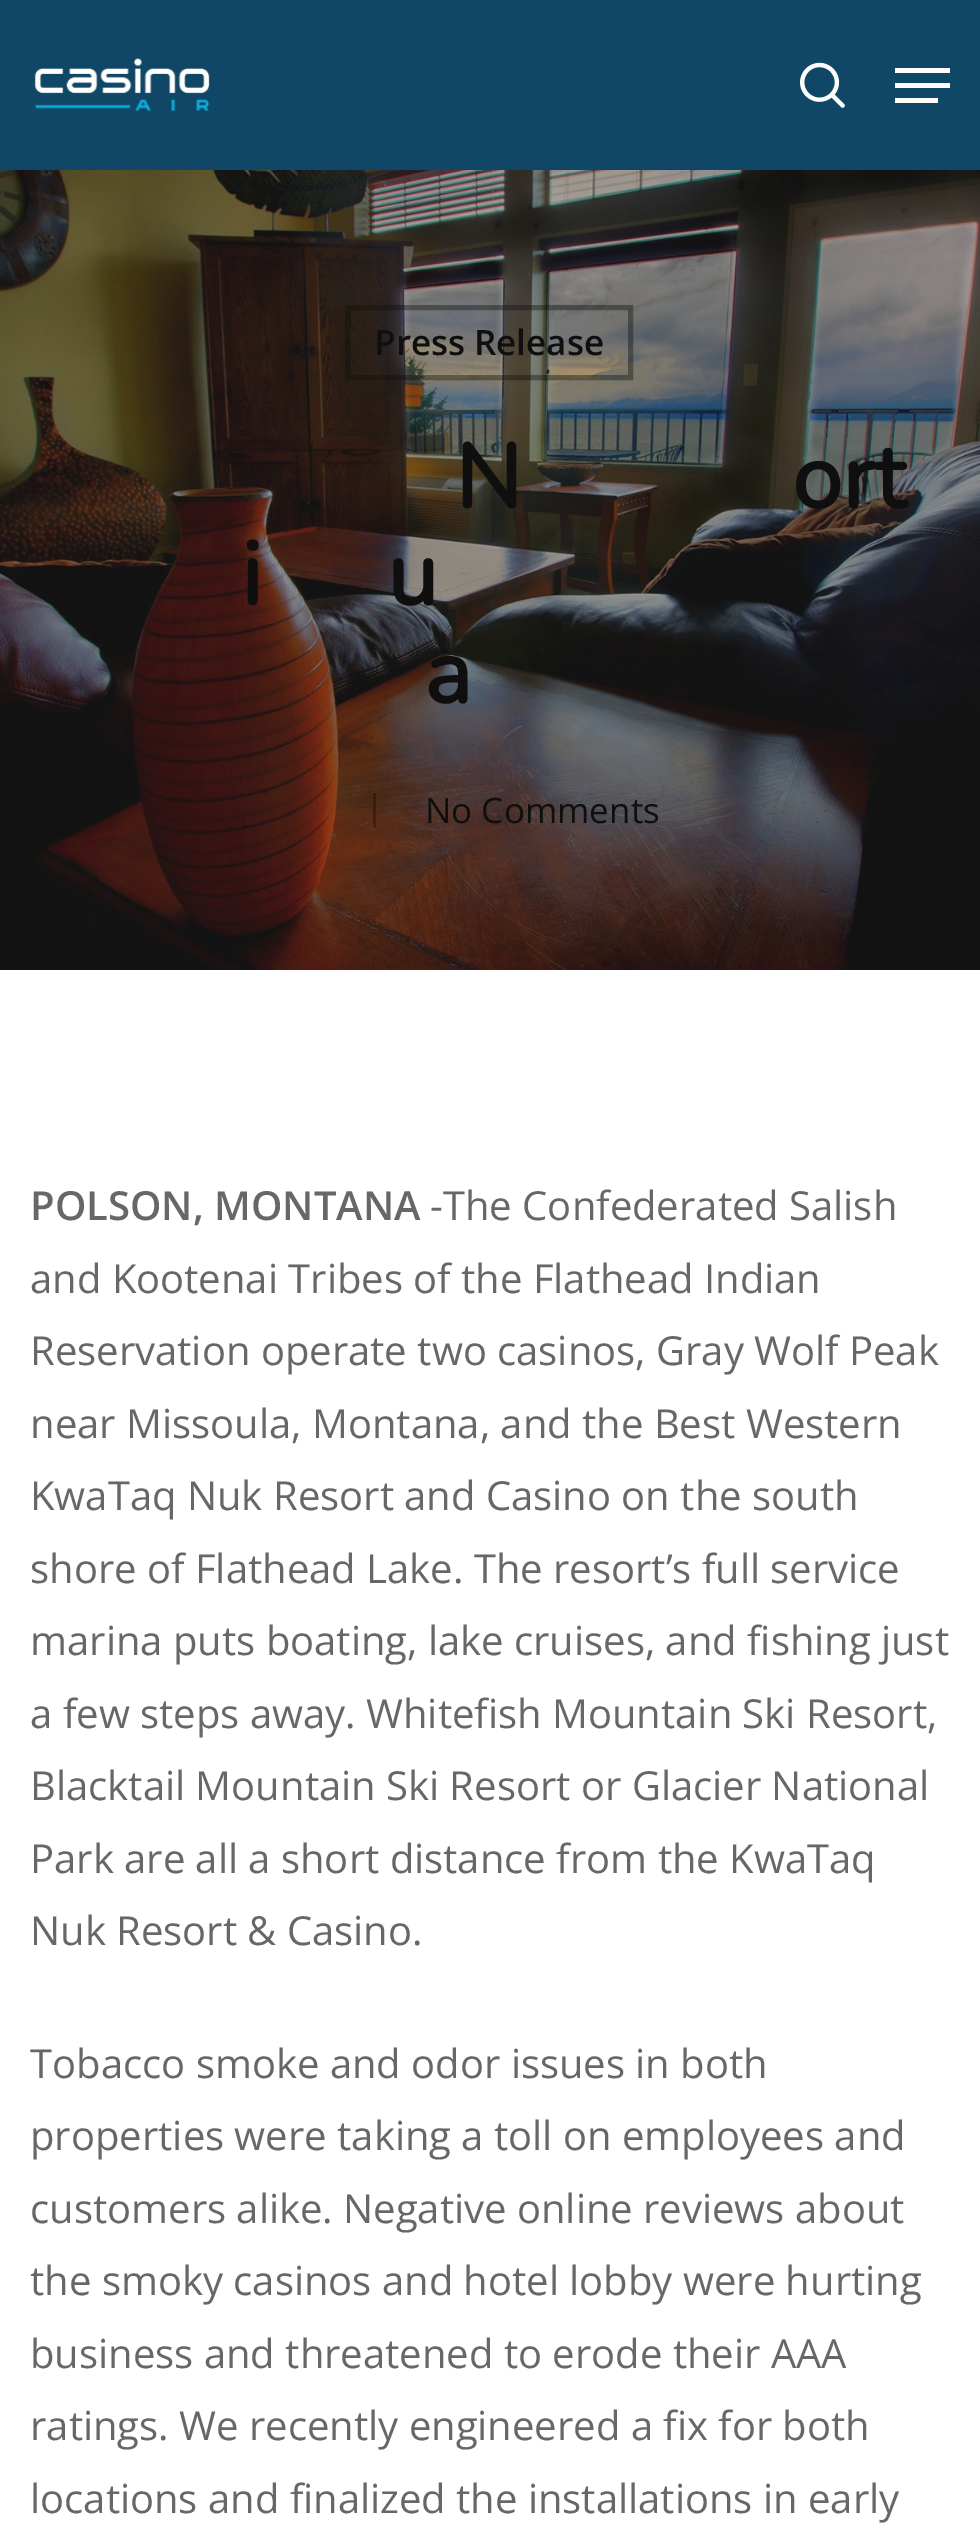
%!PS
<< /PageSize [980 2533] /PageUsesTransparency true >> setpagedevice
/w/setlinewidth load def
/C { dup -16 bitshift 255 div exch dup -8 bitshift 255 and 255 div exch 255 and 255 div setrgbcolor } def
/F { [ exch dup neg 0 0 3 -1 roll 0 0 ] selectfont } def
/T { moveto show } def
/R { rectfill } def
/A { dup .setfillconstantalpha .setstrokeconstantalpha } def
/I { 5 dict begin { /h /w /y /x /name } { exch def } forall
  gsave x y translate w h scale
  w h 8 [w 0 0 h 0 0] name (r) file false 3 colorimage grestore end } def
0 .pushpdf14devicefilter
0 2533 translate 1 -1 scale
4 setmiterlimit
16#FFFFFF C
0 0 980 2533 R
16#114766 C
0 0 980 170 R
(1.rgb) 34 58 176 53 I
(2.rgb) 800 62 45 46 I
16#FFFFFF C
895 68 55 5 R
895 98 43 5 R
895 83 55 5 R
(3.rgb) 0 170 980 800 I
0.4 A
16#0F0F0F C
5 w
347.5 307.5 283 70 rectstroke
/OpenSans-SemiBold 35 F
1 A
(Press Release) 374 355 T
/Nunito-Bold 90 F
(N) 455 508 T
(ort) 792 508 T
(i) 241 605 T
(u) 387 605 T
(a) 424 703 T
0.4 A
373 793 3 35 R
/OpenSans-Regular 35 F
1 A
(No Comments) 425 823 T
/OpenSans-SemiBold 40 F
16#676767 C
(POLSON, MONTANA) 30 1220 T
/OpenSans-Regular 40 F
(-The Confederated Salish) 430 1220 T
(and Kootenai Tribes of the Flathead Indian) 30 1293 T
(Reservation operate two casinos, Gray Wolf Peak) 30 1365 T
(near Missoula, Montana, and the Best Western) 30 1438 T
(KwaTaq Nuk Resort and Casino on the south) 30 1510 T
(shore of Flathead Lake. The resort’s full service) 30 1583 T
(marina puts boating, lake cruises, and fishing just) 30 1655 T
(a few steps away. Whitefish Mountain Ski Resort,) 30 1728 T
(Blacktail Mountain Ski Resort or Glacier National) 30 1800 T
(Park are all a short distance from the KwaTaq) 30 1873 T
(Nuk Resort & Casino.) 30 1945 T
(Tobacco smoke and odor issues in both) 30 2078 T
(properties were taking a toll on employees and) 30 2150 T
(customers alike. Negative online reviews about) 30 2223 T
(the smoky casinos and hotel lobby were hurting) 30 2295 T
(business and threatened to erode their AAA) 30 2368 T
(ratings. We recently engineered a fix for both) 30 2440 T
(locations and finalized the installations in early) 30 2513 T
.poppdf14devicefilter showpage
